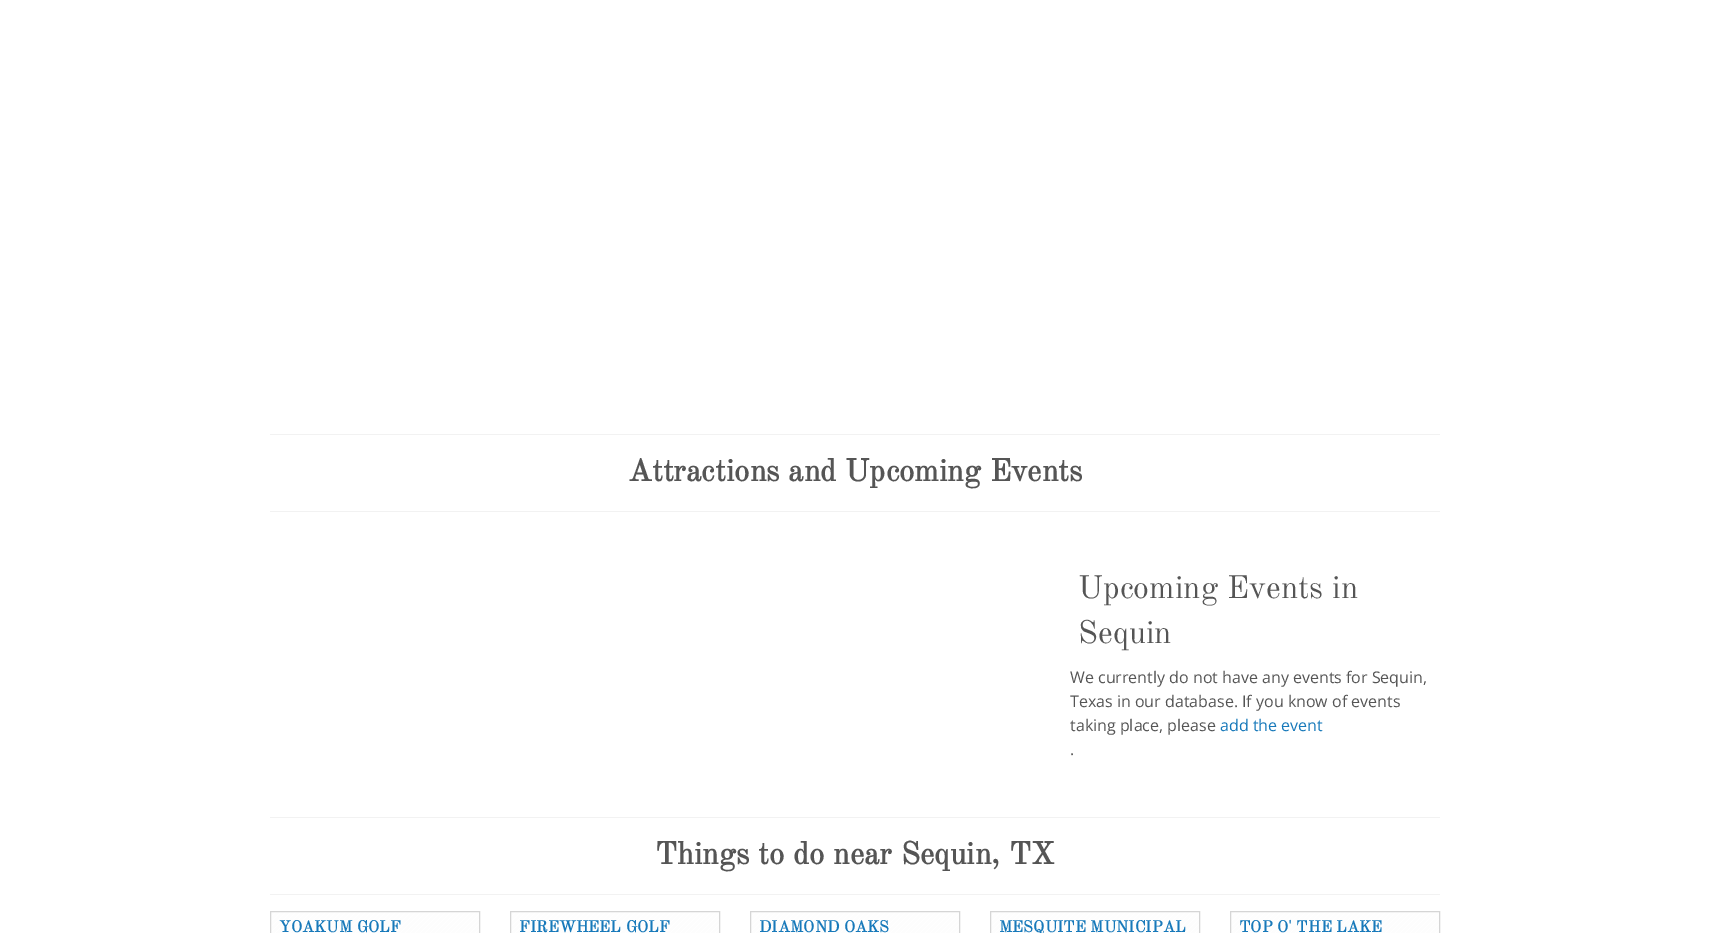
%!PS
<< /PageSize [1710 933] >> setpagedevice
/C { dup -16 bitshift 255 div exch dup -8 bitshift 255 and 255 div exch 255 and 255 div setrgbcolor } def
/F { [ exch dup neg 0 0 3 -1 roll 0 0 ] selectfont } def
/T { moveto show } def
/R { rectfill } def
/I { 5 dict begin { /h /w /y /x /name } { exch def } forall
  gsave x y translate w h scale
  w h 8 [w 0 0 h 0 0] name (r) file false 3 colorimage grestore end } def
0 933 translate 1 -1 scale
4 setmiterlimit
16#FFFFFF C
0 0 1710 933 R
16#F2F2F2 C
270 434 1170 1 R
270 511 1170 1 R
/OldStandardTT-Bold 31 F
16#555555 C
(Attractions and Upcoming Events) 628 481 T
/OldStandardTT-Regular 32 F
(Upcoming Events in) 1078 598 T
(Sequin) 1078 643 T
/OpenSans-Regular 16 F
(We currently do not have any events for Sequin,) 1070 683 T
(Texas in our database. If you know of events) 1070 707 T
(taking place, please) 1070 731 T
16#1779BA C
(add the event) 1220 731 T
16#555555 C
(.) 1070 755 T
16#F2F2F2 C
270 817 1170 1 R
270 894 1170 1 R
/OldStandardTT-Bold 31 F
16#555555 C
(Things to do near Sequin, TX) 655 864 T
(1.rgb) 271 912 208 21 I
16#D5D5D5 C
270.5 911.5 209 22 rectstroke
/OldStandardTT-Bold 16 F
16#1779BA C
(YOAKUM GOLF) 279 932 T
(1.rgb) 511 912 208 21 I
16#D5D5D5 C
510.5 911.5 209 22 rectstroke
16#1779BA C
(FIREWHEEL GOLF) 519 932 T
(1.rgb) 751 912 208 21 I
16#D5D5D5 C
750.5 911.5 209 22 rectstroke
16#1779BA C
(DIAMOND OAKS) 759 932 T
(1.rgb) 991 912 208 21 I
16#D5D5D5 C
990.5 911.5 209 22 rectstroke
16#1779BA C
(MESQUITE MUNICIPAL) 999 932 T
(1.rgb) 1231 912 208 21 I
16#D5D5D5 C
1230.5 911.5 209 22 rectstroke
16#1779BA C
(TOP O' THE LAKE) 1239 932 T
showpage
